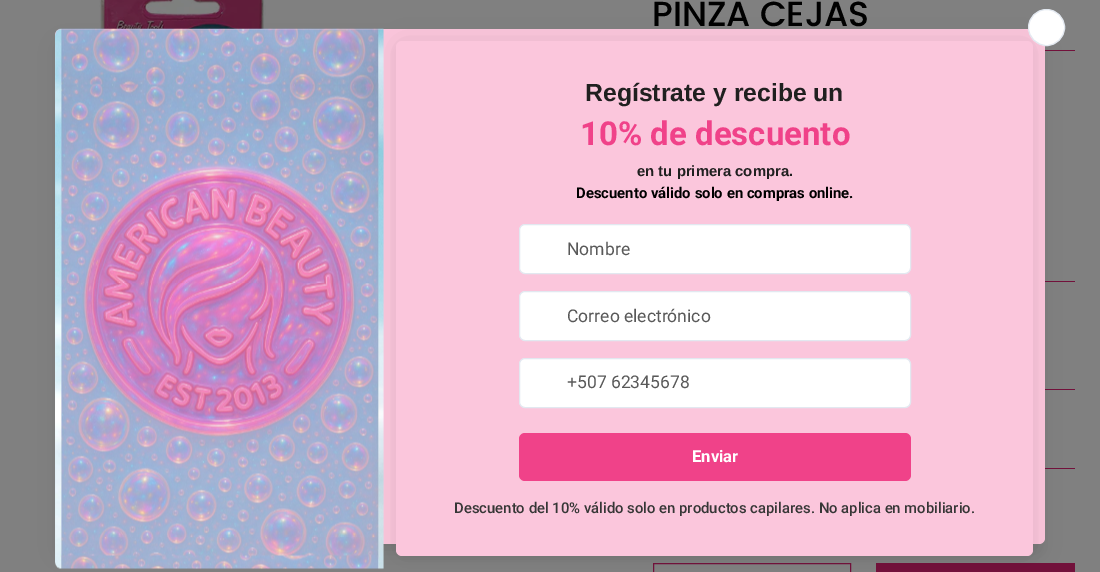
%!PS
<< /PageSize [1100 572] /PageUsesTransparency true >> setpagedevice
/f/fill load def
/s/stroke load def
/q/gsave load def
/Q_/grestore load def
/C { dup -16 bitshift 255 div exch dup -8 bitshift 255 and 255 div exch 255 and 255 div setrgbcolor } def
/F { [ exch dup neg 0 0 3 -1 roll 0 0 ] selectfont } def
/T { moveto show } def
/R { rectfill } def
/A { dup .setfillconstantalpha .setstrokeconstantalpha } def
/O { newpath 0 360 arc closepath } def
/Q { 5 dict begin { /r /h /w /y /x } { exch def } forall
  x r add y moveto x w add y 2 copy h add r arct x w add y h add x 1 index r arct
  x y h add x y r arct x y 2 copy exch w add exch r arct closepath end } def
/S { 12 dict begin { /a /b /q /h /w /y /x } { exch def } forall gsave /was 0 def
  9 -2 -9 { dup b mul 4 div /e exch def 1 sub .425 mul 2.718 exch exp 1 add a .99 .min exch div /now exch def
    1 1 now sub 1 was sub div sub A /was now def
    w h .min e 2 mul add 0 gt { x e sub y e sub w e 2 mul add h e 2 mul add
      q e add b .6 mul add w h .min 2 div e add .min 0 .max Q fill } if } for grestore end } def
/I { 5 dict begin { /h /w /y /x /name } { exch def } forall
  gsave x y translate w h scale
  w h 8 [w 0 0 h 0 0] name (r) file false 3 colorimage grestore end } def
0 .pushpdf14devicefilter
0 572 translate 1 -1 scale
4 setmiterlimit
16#808080 C
0 0 1100 572 R
(1.rgb) 99 0 389 29 I
16#72113B C
1045 50 30 1 R
/Poppins-Medium 34.75 F
16#000000 C
(PINZA CEJAS) 652 26 T
16#72113B C
1045 281 30 1 R
1045 389 30 1 R
1045 468 30 1 R
653.5 563.5 197 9 rectstroke
876 563 199 9 R
16#000000 C
59 45 982 508 3 9.5 .1 S
16#FBC6DC C
55 29 990 515 6 Q f
16#000000 C
399 49 631 510 4 4 .05 S
(2.rgb) 55 28 329 542 I
400 45 629 508 3 12.5 .12 S
16#FBC6DC C
396 41 637 515 6 Q f
16#FFFFFF C
1046.5 27.5 18 O q f Q_
16#E2E8F0 C
s
/LiberationSans-Bold 24.75 F
16#202020 C
(Regístrate y recibe un) 585 101 T
/Roboto-Bold 33 F
16#F04289 C
(10% de descuento) 580 145 T
/LiberationSans-Bold 14.85 F
16#202020 C
(en tu primera compra.) 637 176 T
/Roboto-Bold 14.85 F
16#000000 C
(Descuento válido solo en compras online.) 576 198 T
16#FFFFFF C
519.5 224.5 391 49 5.5 Q q f Q_
16#E2E8F0 C
s
/Roboto-Regular 17.5 F
16#595959 C
(Nombre) 567 255 T
16#FFFFFF C
519.5 291.5 391 49 5.5 Q q f Q_
16#E2E8F0 C
s
16#595959 C
(Correo electrónico) 567 322 T
16#FFFFFF C
519.5 358.5 391 49 5.5 Q q f Q_
16#E2E8F0 C
s
16#595959 C
(+507 62345678) 567 388 T
16#F04289 C
519 433 392 48 6 Q f
/Roboto-Bold 16.5 F
16#FFFFFF C
(Enviar) 692 462 T
/Roboto-Medium 14.85 F
16#363636 C
(Descuento del 10% válido solo en productos capilares. No aplica en mobiliario.) 454 513 T
.poppdf14devicefilter showpage
